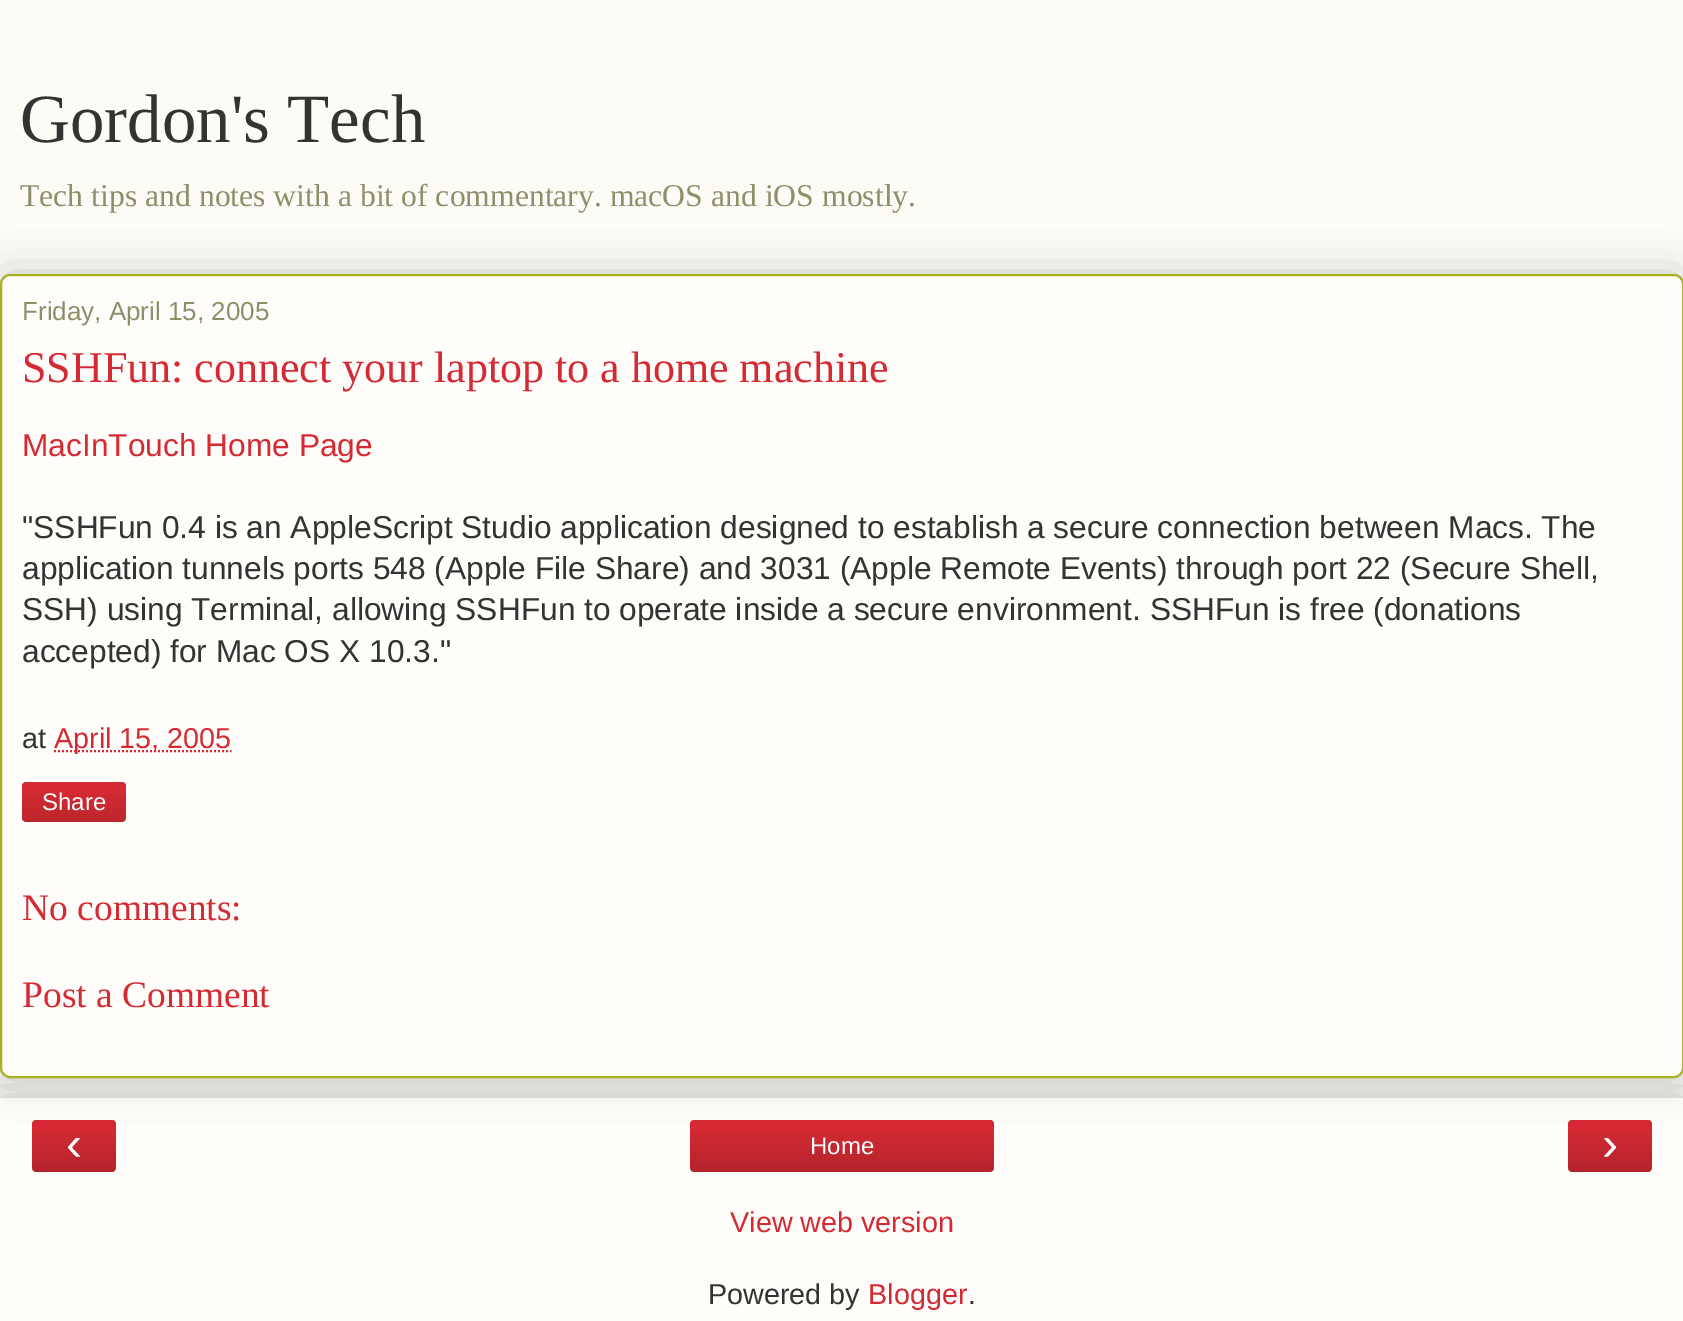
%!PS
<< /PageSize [1683 1321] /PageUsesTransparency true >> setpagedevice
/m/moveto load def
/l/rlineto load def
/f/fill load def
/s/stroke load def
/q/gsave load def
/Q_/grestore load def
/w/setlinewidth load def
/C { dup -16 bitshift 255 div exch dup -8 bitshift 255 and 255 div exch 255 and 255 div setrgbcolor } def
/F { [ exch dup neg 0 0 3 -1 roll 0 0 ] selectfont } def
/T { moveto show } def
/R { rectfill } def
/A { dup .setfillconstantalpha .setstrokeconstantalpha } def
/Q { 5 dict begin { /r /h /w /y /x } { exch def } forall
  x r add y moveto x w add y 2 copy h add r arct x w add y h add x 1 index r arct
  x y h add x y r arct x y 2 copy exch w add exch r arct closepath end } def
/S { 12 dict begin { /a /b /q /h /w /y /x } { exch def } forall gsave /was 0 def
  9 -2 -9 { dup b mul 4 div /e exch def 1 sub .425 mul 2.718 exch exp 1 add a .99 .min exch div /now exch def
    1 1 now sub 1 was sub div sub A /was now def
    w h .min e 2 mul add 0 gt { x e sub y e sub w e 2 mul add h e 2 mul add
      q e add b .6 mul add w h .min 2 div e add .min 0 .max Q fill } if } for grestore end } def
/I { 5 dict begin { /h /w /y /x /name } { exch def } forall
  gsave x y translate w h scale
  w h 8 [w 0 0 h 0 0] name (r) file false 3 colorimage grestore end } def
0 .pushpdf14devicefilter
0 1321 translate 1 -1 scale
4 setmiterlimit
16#FCFBF5 C
0 0 1683 1321 R
/LiberationSerif-Regular 69 F
16#333333 C
(Gordon's Tech) 20 142 T
/LiberationSerif-Regular 31.7 F
16#908D6A C
(Tech tips and notes with a bit of commentary. macOS and iOS mostly.) 20 206 T
16#000000 C
0 1098 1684 166 0 20 .2 S
16#FEFDFA C
0 1098 1683 223 R
16#D52A33 C
32 1120 84 52 4 Q f
(2.rgb) 32 1132 84 40 I
690 1120 304 52 4 Q f
(3.rgb) 690 1132 304 40 I
1568 1120 84 52 4 Q f
(2.rgb) 1568 1132 84 40 I
16#000000 C
0 274 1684 804 10 20 .2 S
16#FEFDFA C
1 275 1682 802 9 Q q f Q_
16#AAB123 C
2 w
s
/LiberationSans-Regular 26 F
16#908D6A C
(Friday, April 15, 2005) 22 320 T
/LiberationSerif-Regular 44 F
16#D52A33 C
(SSHFun: connect your laptop to a home machine) 22 382 T
/LiberationSans-Regular 31.7 F
(MacInTouch Home Page) 22 456 T
16#333333 C
("SSHFun 0.4 is an AppleScript Studio application designed to establish a secure connection between Macs. The) 22 538 T
(application tunnels ports 548 \(Apple File Share\) and 3031 \(Apple Remote Events\) through port 22 \(Secure Shell,) 22 579 T
(SSH\) using Terminal, allowing SSHFun to operate inside a secure environment. SSHFun is free \(donations) 22 620 T
(accepted\) for Mac OS X 10.3.") 22 662 T
/LiberationSans-Regular 28.75 F
(at) 22 748 T
16#D52A33 C
[2 2] 0 setdash
54 751 m 177.5 0 l s
(April 15, 2005) 54 748 T
22 782 104 40 4 Q f
(1.rgb) 22 794 104 28 I
/LiberationSans-Regular 24 F
16#FFFFFF C
(Share) 42 810 T
/LiberationSerif-Regular 37.5 F
16#D52A33 C
(No comments:) 22 920 T
(Post a Comment) 22 1007 T
/LiberationSans-Regular 48 F
16#FFFFFF C
(‹) 66 1160 T
/LiberationSans-Regular 24 F
(Home) 810 1154 T
/LiberationSans-Regular 48 F
(›) 1602 1160 T
/LiberationSans-Regular 28.75 F
16#D52A33 C
(View web version) 730 1232 T
16#333333 C
(Powered by) 708 1304 T
16#D52A33 C
(Blogger) 868 1304 T
16#333333 C
(.) 968 1304 T
.poppdf14devicefilter showpage
